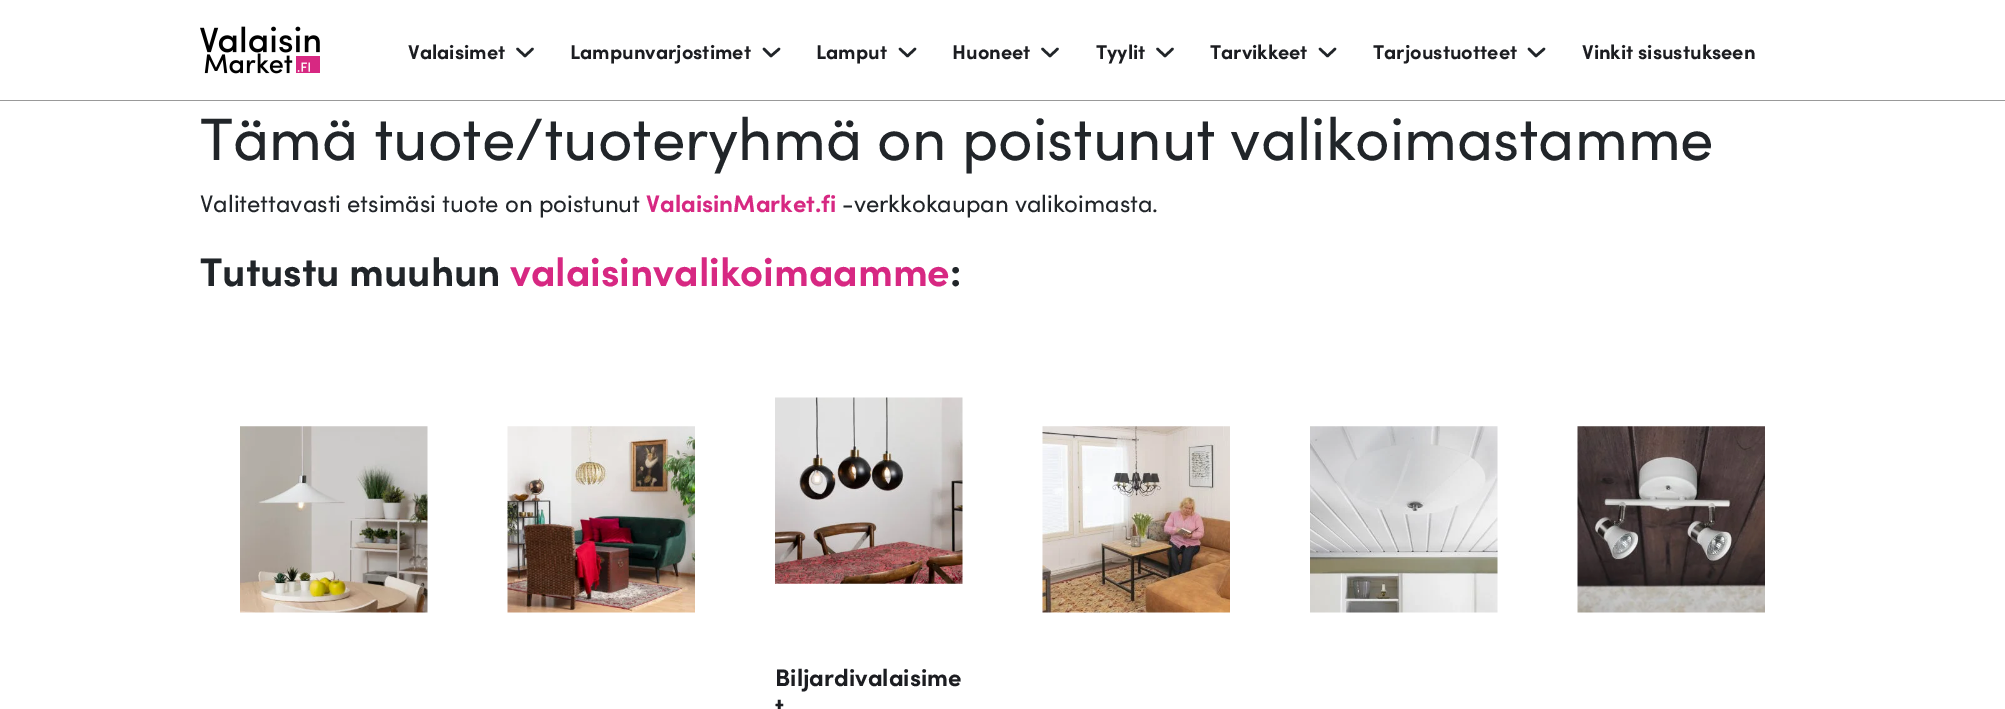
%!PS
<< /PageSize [2005 709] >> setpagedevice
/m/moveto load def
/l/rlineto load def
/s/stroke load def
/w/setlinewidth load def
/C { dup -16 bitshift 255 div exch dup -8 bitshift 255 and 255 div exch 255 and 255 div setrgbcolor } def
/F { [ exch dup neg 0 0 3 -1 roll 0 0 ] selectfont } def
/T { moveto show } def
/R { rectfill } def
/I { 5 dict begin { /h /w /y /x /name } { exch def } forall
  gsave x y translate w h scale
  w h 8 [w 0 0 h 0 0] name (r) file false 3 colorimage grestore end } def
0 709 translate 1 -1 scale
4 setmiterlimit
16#FFFFFF C
0 0 2005 709 R
16#999999 C
0 100 2005 1 R
(1.rgb) 200 26 120 48 I
/Sofia-Bold 20 F
16#1C1D21 C
(Valaisimet) 408 59 T
16#212529 C
2.5 w
1 setlinecap
1 setlinejoin
517.5 49 m 7.5 7 l 7.5 -7 l s
16#1C1D21 C
(Lampunvarjostimet) 570 59 T
16#212529 C
764 49 m 7 7 l 8 -7 l s
16#1C1D21 C
(Lamput) 816 59 T
16#212529 C
900 49 m 7.5 7 l 7.5 -7 l s
16#1C1D21 C
(Huoneet) 952 59 T
16#212529 C
1042.5 49 m 7.5 7 l 7.5 -7 l s
16#1C1D21 C
(Tyylit) 1096 59 T
16#212529 C
1157.5 49 m 7.5 7 l 7.5 -7 l s
16#1C1D21 C
(Tarvikkeet) 1210 59 T
16#212529 C
1320 49 m 7.5 7 l 7.5 -7 l s
16#1C1D21 C
(Tarjoustuotteet) 1373 59 T
16#212529 C
1529 49 m 7 7 l 8 -7 l s
16#1C1D21 C
(Vinkit sisustukseen) 1582 59 T
/Sofia-Regular 60 F
16#212529 C
(Tämä tuote/tuoteryhmä on poistunut valikoimastamme) 200 160 T
/Sofia-Regular 24 F
(Valitettavasti etsimäsi tuote on poistunut) 200 212 T
/Sofia-Bold 24 F
16#D72882 C
(ValaisinMarket.fi) 646 212 T
/Sofia-Regular 24 F
16#212529 C
(-verkkokaupan valikoimasta.) 842 212 T
/Sofia-Bold 40 F
(Tutustu muuhun) 200 286 T
16#D72882 C
(valaisinvalikoimaamme) 510 286 T
16#212529 C
(:) 950 286 T
(2.rgb) 240 426 188 187 I
(3.rgb) 507 426 188 187 I
(4.rgb) 1042 426 188 187 I
(5.rgb) 1310 426 188 187 I
(6.rgb) 1577 426 188 187 I
(7.rgb) 775 397 188 187 I
/Sofia-Bold 24 F
16#1C1D21 C
(Biljardivalaisime) 775 686 T
(t) 775 715 T
showpage
